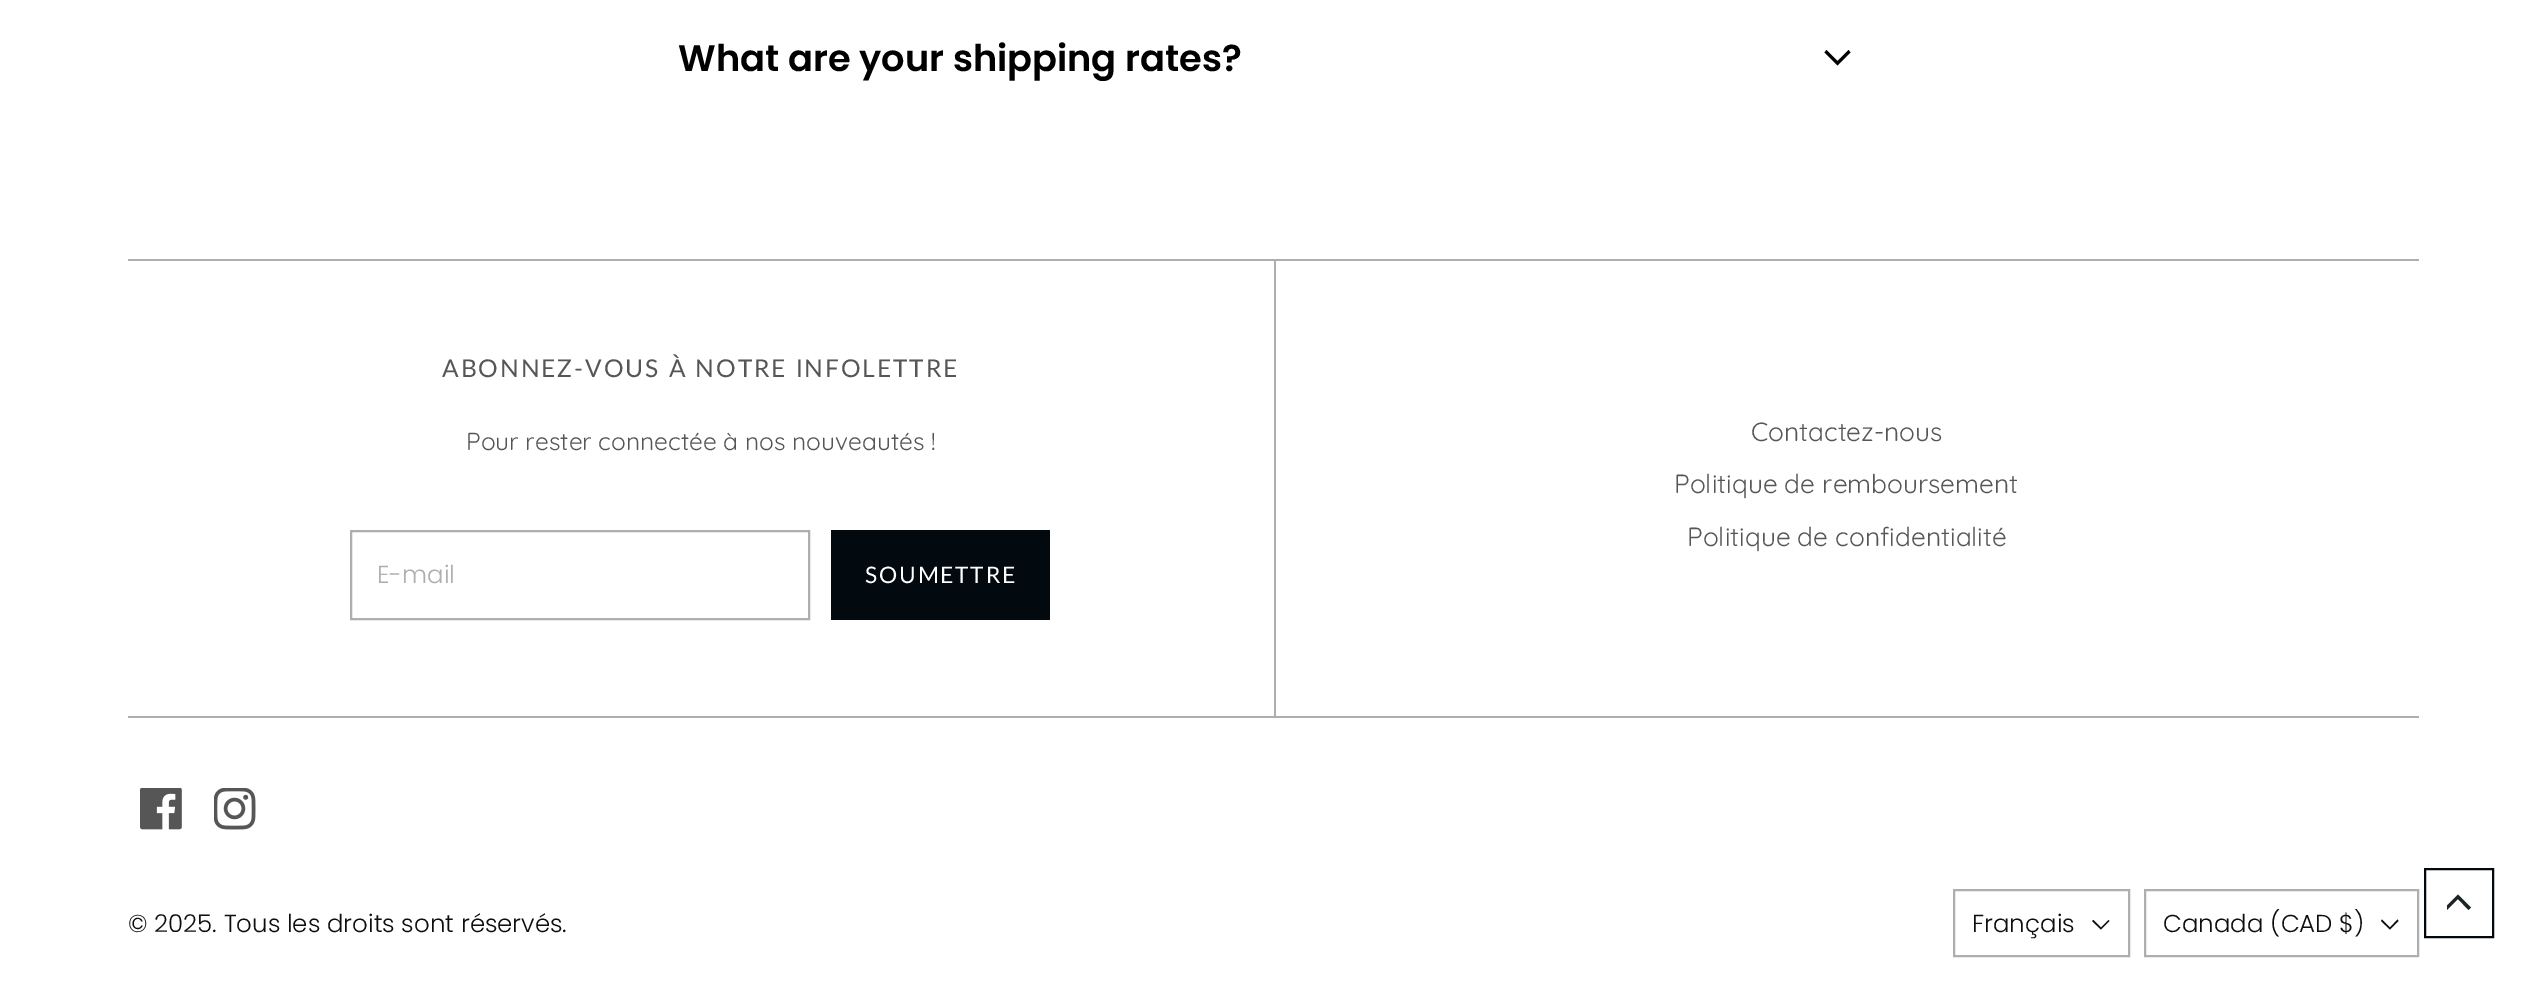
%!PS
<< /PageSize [2545 992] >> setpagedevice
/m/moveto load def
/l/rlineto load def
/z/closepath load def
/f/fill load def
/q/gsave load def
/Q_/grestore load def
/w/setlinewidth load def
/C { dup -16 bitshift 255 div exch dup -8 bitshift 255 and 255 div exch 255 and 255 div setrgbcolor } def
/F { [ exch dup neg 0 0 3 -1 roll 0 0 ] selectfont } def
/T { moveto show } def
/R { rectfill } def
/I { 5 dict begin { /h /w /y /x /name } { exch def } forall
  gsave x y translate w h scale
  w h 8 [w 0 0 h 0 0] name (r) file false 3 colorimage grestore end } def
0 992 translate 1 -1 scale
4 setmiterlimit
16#FFFFFF C
0 0 2545 992 R
/Poppins-SemiBold 36.75 F
16#000000 C
(What are your shipping rates?) 678 71 T
1824.5 52.5 m 2 -2.5 l 11 11 l 11 -11 l 2 2.5 l -13 13 l z f
16#AEAEAE C
128 259 2291 2 R
128 716 2291 2 R
/Lato-Regular 24.5 F
16#565656 C
442 377 m 1.95 0 (ABONNEZ-VOUS À NOTRE INFOLETTRE) ashow
/Quicksand-Regular 24.5 F
(Pour rester connectée à nos nouveautés !) 466 450 T
16#AEAEAE C
2 w
351 531 458 88 rectstroke
/Poppins-Light 24.5 F
(E-mail) 377 583 T
16#030A0F C
831 530 219 90 R
/Lato-Regular 22.75 F
16#FFFFFF C
865 583 m 1.75 0 (SOUMETTRE) ashow
16#AEAEAE C
1274 261 2 455 R
/Quicksand-Regular 26.25 F
16#565656 C
(Contactez-nous) 1751 441 T
(Politique de remboursement) 1674 493 T
(Politique de confidentialité) 1687 546 T
(1.rgb) 140 788 42 42 I
(2.rgb) 214 788 42 42 I
/Poppins-Light 24.5 F
16#0E0E0E C
(© 2025. Tous les droits sont réservés.) 128 932 T
16#AEAEAE C
1954 890 175 66 rectstroke
16#0E0E0E C
(Français) 1972 932 T
2101 927.5 m 7.5 -7.5 l 1 1 l -8.5 8.5 l -9 -8.5 l 1.5 -1 l z f
16#AEAEAE C
2145 890 273 66 rectstroke
16#0E0E0E C
(Canada \(CAD $\)) 2163 932 T
2390 927.5 m 7.5 -8 l 1 1.5 l -8.5 8.5 l -9 -8.5 l 1 -1.5 l z f
16#030A0F C
2425 869 68 68 rectstroke
q
2447 887 26 34 rectclip
16#1C2327 C
2471 907.5 m -2.5 2.5 l -10.5 -11 l -11 11 l -2 -2.5 l 13 -13 l z f
Q_
showpage
